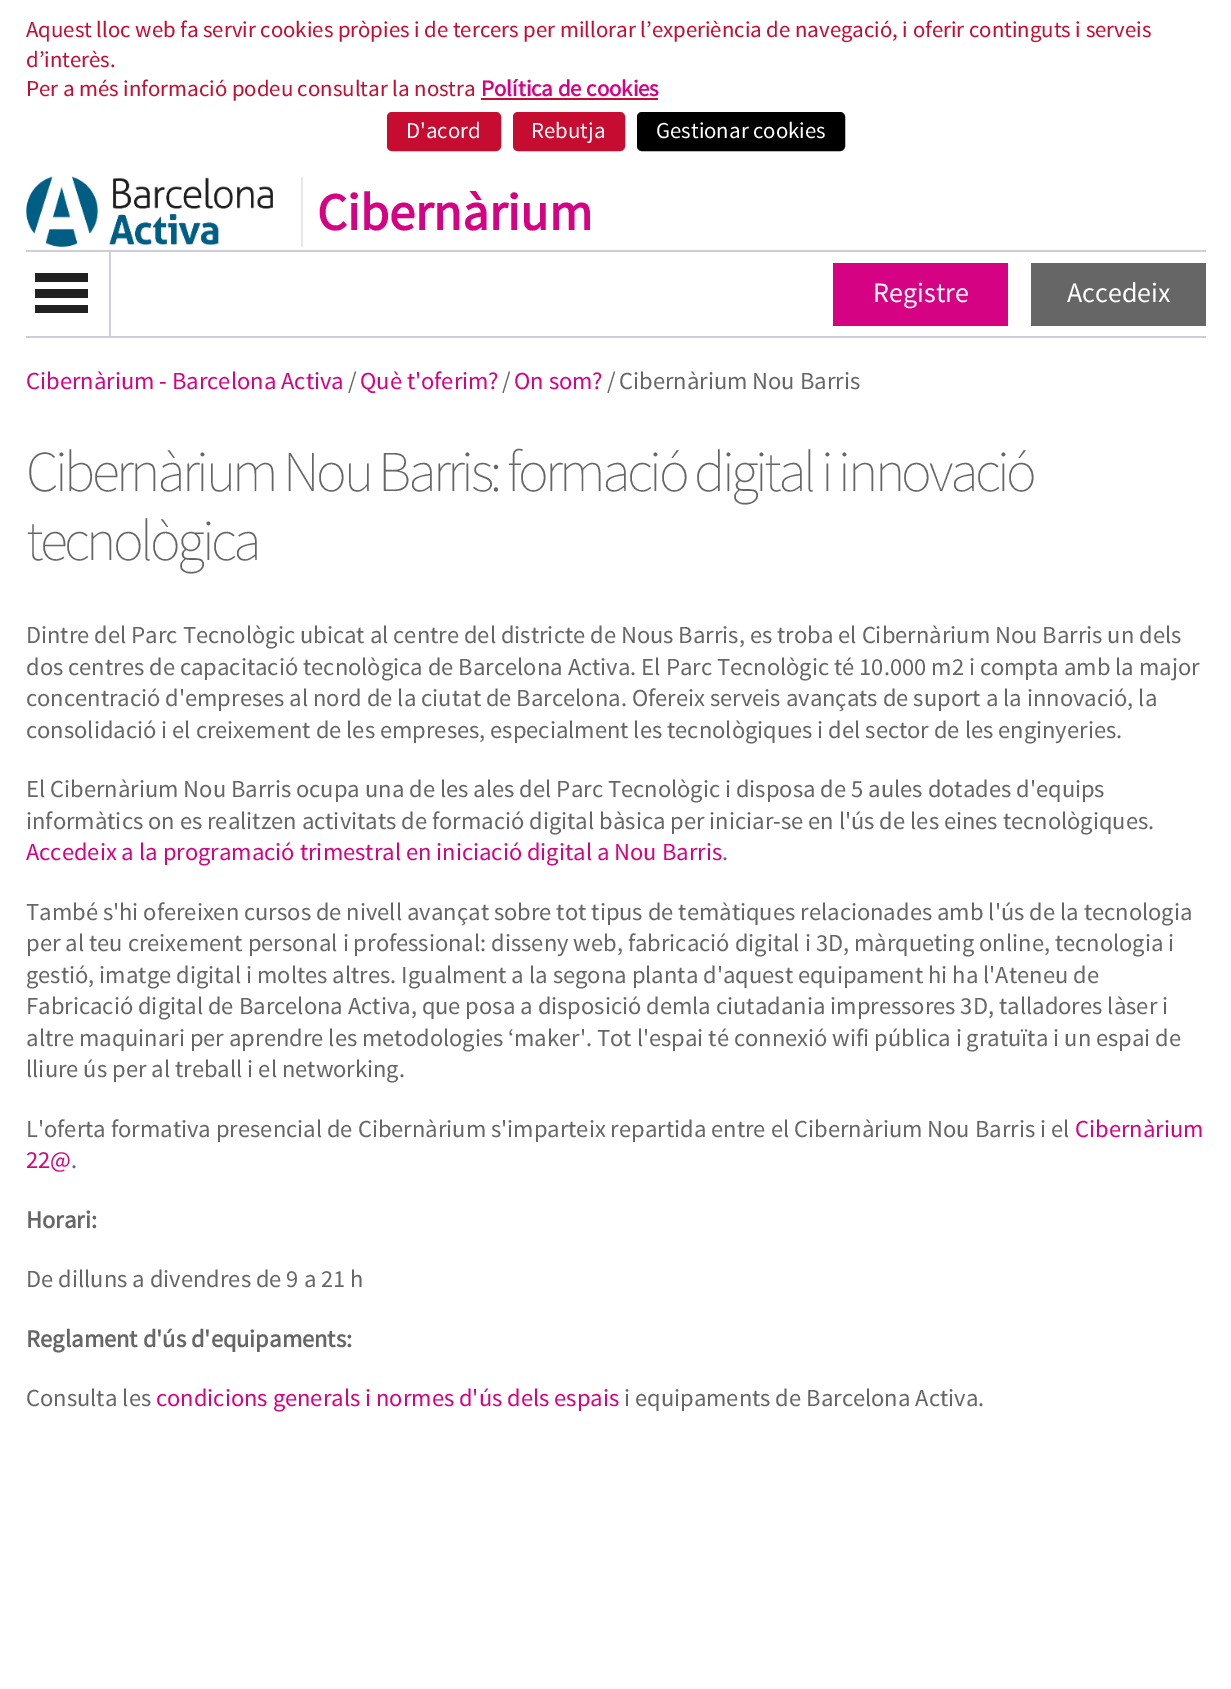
%!PS
<< /PageSize [1231 1689] >> setpagedevice
/m/moveto load def
/f/fill load def
/s/stroke load def
/q/gsave load def
/Q_/grestore load def
/w/setlinewidth load def
/C { dup -16 bitshift 255 div exch dup -8 bitshift 255 and 255 div exch 255 and 255 div setrgbcolor } def
/F { [ exch dup neg 0 0 3 -1 roll 0 0 ] selectfont } def
/T { moveto show } def
/R { rectfill } def
/Q { 5 dict begin { /r /h /w /y /x } { exch def } forall
  x r add y moveto x w add y 2 copy h add r arct x w add y h add x 1 index r arct
  x y h add x y r arct x y 2 copy exch w add exch r arct closepath end } def
/I { 5 dict begin { /h /w /y /x /name } { exch def } forall
  gsave x y translate w h scale
  w h 8 [w 0 0 h 0 0] name (r) file false 3 colorimage grestore end } def
0 1689 translate 1 -1 scale
4 setmiterlimit
16#FFFFFF C
0 0 1231 1689 R
/SourceSansPro-Regular 22.75 F
16#C60C30 C
(Aquest lloc web fa servir cookies pròpies i de tercers per millorar l’experiència de navegació, i oferir continguts i serveis) 26 37 T
(d’interès.) 26 67 T
(Per a més informació podeu consultar la nostra) 26 96 T
/SourceSansPro-Bold 22.75 F
16#D50283 C
(Política de cookies) 481 96 T
16#C60C30 C
481 98 177 2 R
388 113 112 37 4 Q q f Q_
2 w
s
/SourceSansPro-Regular 22.75 F
16#FFFFFF C
(D'acord) 406 138 T
16#C60C30 C
514 113 110 37 4 Q q f Q_
s
16#FFFFFF C
(Rebutja) 531 138 T
16#000000 C
638 113 206 37 4 Q q f Q_
s
16#FFFFFF C
(Gestionar cookies) 656 138 T
(1.rgb) 26 176 247 71 I
16#E8E8E8 C
301 177 2 70 R
/SourceSansPro-Bold 52.5 F
16#D50283 C
(Cibernàrium) 317 230 T
16#CDCED9 C
26 250 1180 2 R
26 336 1180 2 R
109 252 2 84 R
16#212121 C
35 289 53 9 R
35 273 53 9 R
35 305 53 8 R
16#D50283 C
833 263 175 63 R
/SourceSansPro-Regular 28 F
16#FFFFFF C
(Registre) 873 302 T
16#666666 C
1031 263 175 63 R
16#FFFFFF C
(Accedeix) 1067 302 T
/SourceSansPro-Regular 24.5 F
16#D50283 C
(Cibernàrium - Barcelona Activa) 26 389 T
16#666666 C
(/) 348 389 T
16#D50283 C
(Què t'oferim?) 360 389 T
16#666666 C
(/) 502 389 T
16#D50283 C
(On som?) 514 389 T
16#666666 C
(/) 607 389 T
(Cibernàrium Nou Barris) 619 389 T
/SourceSansPro-ExtraLight 57.75 F
26 491 m -3.5 0 (Cibernàrium Nou Barris: formació digital i innovació) ashow
26 560 m -3.5 0 (tecnològica) ashow
/SourceSansPro-Regular 24.5 F
(Dintre del Parc Tecnològic ubicat al centre del districte de Nous Barris, es troba el Cibernàrium Nou Barris un dels) 26 643 T
(dos centres de capacitació tecnològica de Barcelona Activa. El Parc Tecnològic té 10.000 m2 i compta amb la major) 26 675 T
(concentració d'empreses al nord de la ciutat de Barcelona. Ofereix serveis avançats de suport a la innovació, la) 26 706 T
(consolidació i el creixement de les empreses, especialment les tecnològiques i del sector de les enginyeries.) 26 738 T
(El Cibernàrium Nou Barris ocupa una de les ales del Parc Tecnològic i disposa de 5 aules dotades d'equips) 26 797 T
(informàtics on es realitzen activitats de formació digital bàsica per iniciar-se en l'ús de les eines tecnològiques.) 26 829 T
16#D50283 C
(Accedeix a la programació trimestral en iniciació digital a Nou Barris) 26 860 T
16#666666 C
(.) 722 860 T
(També s'hi ofereixen cursos de nivell avançat sobre tot tipus de temàtiques relacionades amb l'ús de la tecnologia) 26 920 T
(per al teu creixement personal i professional: disseny web, fabricació digital i 3D, màrqueting online, tecnologia i) 26 951 T
(gestió, imatge digital i moltes altres. Igualment a la segona planta d'aquest equipament hi ha l'Ateneu de) 26 983 T
(Fabricació digital de Barcelona Activa, que posa a disposició demla ciutadania impressores 3D, talladores làser i) 26 1014 T
(altre maquinari per aprendre les metodologies ‘maker'. Tot l'espai té connexió wifi pública i gratuïta i un espai de) 26 1046 T
(lliure ús per al treball i el networking.) 26 1077 T
(L'oferta formativa presencial de Cibernàrium s'imparteix repartida entre el Cibernàrium Nou Barris i el) 26 1137 T
16#D50283 C
(Cibernàrium) 1075 1137 T
(22@) 26 1168 T
16#666666 C
(.) 71 1168 T
/SourceSansPro-Bold 24.5 F
(Horari:) 26 1228 T
/SourceSansPro-Regular 24.5 F
(De dilluns a divendres de 9 a 21 h) 26 1287 T
/SourceSansPro-Bold 24.5 F
(Reglament d'ús d'equipaments:) 26 1347 T
/SourceSansPro-Regular 24.5 F
(Consulta les) 26 1406 T
16#D50283 C
(condicions generals i normes d'ús dels espais) 156 1406 T
16#666666 C
(i equipaments de Barcelona Activa.) 624 1406 T
showpage
